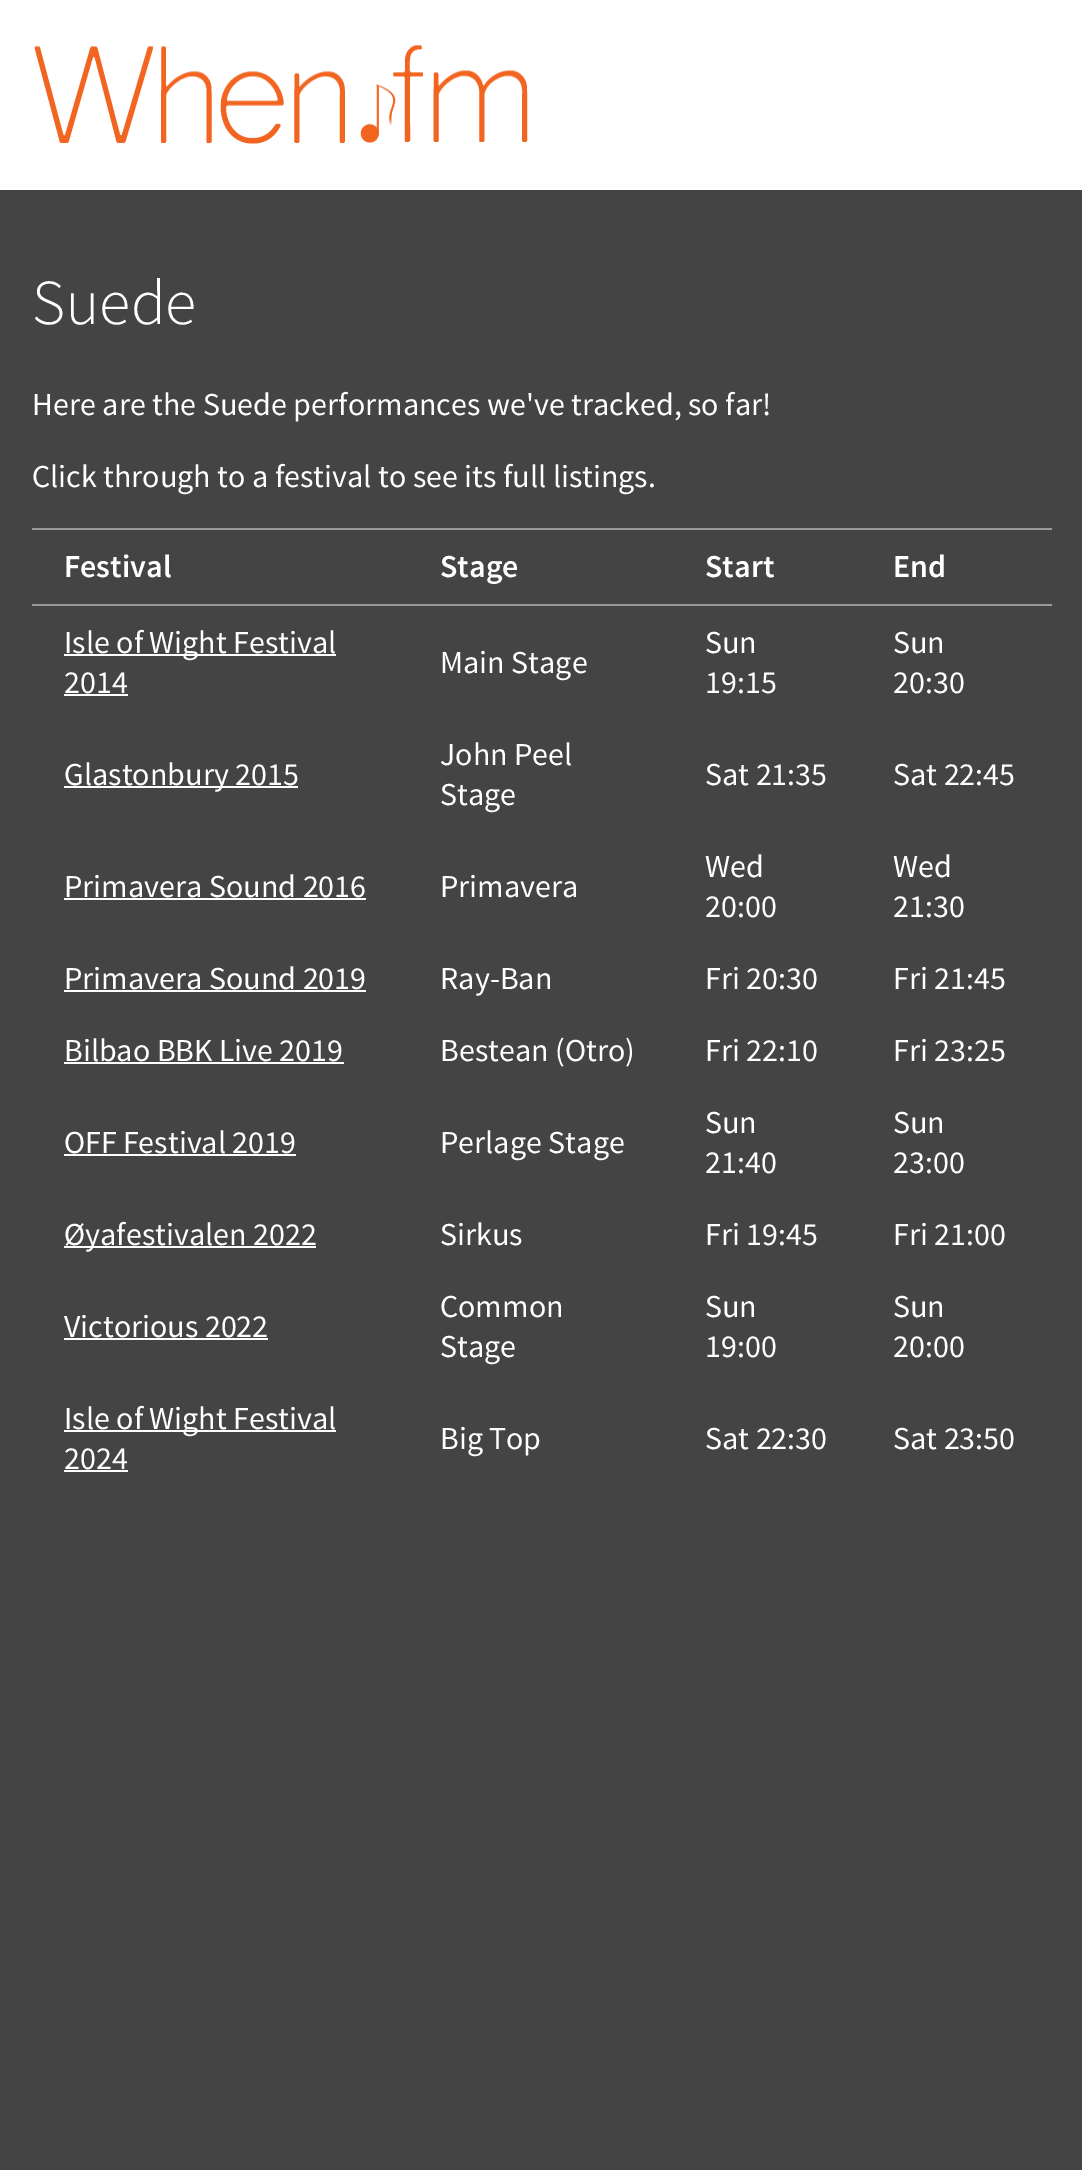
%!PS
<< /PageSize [1082 2170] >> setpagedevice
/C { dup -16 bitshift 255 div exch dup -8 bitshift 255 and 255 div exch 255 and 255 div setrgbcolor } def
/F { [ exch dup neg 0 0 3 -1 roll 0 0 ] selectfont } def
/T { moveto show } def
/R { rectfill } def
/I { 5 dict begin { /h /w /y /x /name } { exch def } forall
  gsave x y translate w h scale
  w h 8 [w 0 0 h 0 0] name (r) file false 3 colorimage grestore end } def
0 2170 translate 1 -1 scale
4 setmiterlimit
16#444444 C
0 0 1082 2170 R
16#FFFFFF C
0 0 1082 190 R
(1.rgb) 34 45 494 99 I
/SourceSansPro-Light 64 F
(Suede) 32 324 T
/SourceSansPro-Regular 32 F
(Here are the Suede performances we've tracked, so far!) 32 415 T
(Click through to a festival to see its full listings.) 32 487 T
/SourceSansPro-SemiBold 32 F
(Festival) 64 577 T
(Stage) 440 577 T
(Start) 705 577 T
16#999999 C
32 528 1020 2 R
32 604 1020 2 R
16#FFFFFF C
(End) 893 577 T
64 654 272 2 R
/SourceSansPro-Regular 32 F
(Isle of Wight Festival) 64 653 T
(2014) 64 693 T
64 694 64 2 R
(Main Stage) 440 673 T
(Sun) 705 653 T
(19:15) 705 693 T
(Sun) 893 653 T
(20:30) 893 693 T
64 786 234 2 R
(Glastonbury 2015) 64 785 T
(John Peel) 440 765 T
(Stage) 440 805 T
(Sat 21:35) 705 785 T
(Sat 22:45) 893 785 T
(Primavera Sound 2016) 64 897 T
64 898 302 2 R
(Primavera) 440 897 T
(Wed) 705 877 T
(20:00) 705 917 T
(Wed) 893 877 T
(21:30) 893 917 T
(Primavera Sound 2019) 64 989 T
64 990 302 2 R
(Ray-Ban) 440 989 T
(Fri 20:30) 705 989 T
(Fri 21:45) 893 989 T
(Bilbao BBK Live 2019) 64 1061 T
64 1062 280 2 R
(Bestean \(Otro\)) 440 1061 T
(Fri 22:10) 705 1061 T
(Fri 23:25) 893 1061 T
(OFF Festival 2019) 64 1153 T
64 1154 232 2 R
(Perlage Stage) 440 1153 T
(Sun) 705 1133 T
(21:40) 705 1173 T
(Sun) 893 1133 T
(23:00) 893 1173 T
64 1246 252 2 R
(Øyafestivalen 2022) 64 1245 T
(Sirkus) 440 1245 T
(Fri 19:45) 705 1245 T
(Fri 21:00) 893 1245 T
(Victorious 2022) 64 1337 T
64 1338 204 2 R
(Common) 440 1317 T
(Stage) 440 1357 T
(Sun) 705 1317 T
(19:00) 705 1357 T
(Sun) 893 1317 T
(20:00) 893 1357 T
64 1430 272 2 R
(Isle of Wight Festival) 64 1429 T
(2024) 64 1469 T
64 1470 64 2 R
(Big Top) 440 1449 T
(Sat 22:30) 705 1449 T
(Sat 23:50) 893 1449 T
showpage
